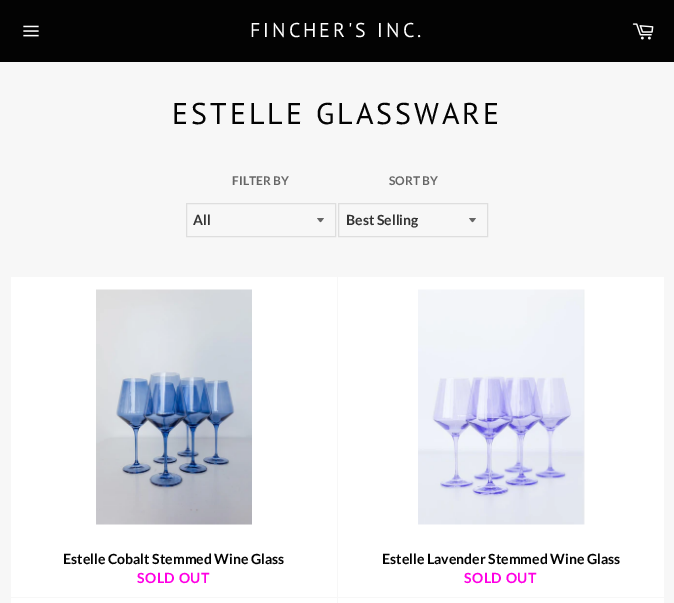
%!PS
<< /PageSize [674 603] >> setpagedevice
/m/moveto load def
/c/rcurveto load def
/z/closepath load def
/f/fill load def
/C { dup -16 bitshift 255 div exch dup -8 bitshift 255 and 255 div exch 255 and 255 div setrgbcolor } def
/F { [ exch dup neg 0 0 3 -1 roll 0 0 ] selectfont } def
/T { moveto show } def
/R { rectfill } def
/I { 5 dict begin { /h /w /y /x /name } { exch def } forall
  gsave x y translate w h scale
  w h 8 [w 0 0 h 0 0] name (r) file false 3 colorimage grestore end } def
0 603 translate 1 -1 scale
4 setmiterlimit
16#F7F7F7 C
0 0 674 603 R
16#030303 C
0 0 674 62 R
(1.rgb) 23 25 16 12 I
/PTSans-Regular 20 F
16#FFFFFF C
250 37 m 3 0 (FINCHER'S INC.) ashow
(2.rgb) 632 23 22 17 I
/PTSans-Regular 30 F
16#030303 C
172 124 m 3 0 (ESTELLE GLASSWARE) ashow
/Lato-Bold 12 F
16#666666 C
(FILTER BY) 232 185 T
317 218 m 4.5 5.5 2.5 5.5 7 0 c z f
16#DEDEDE C
186.5 203.5 149 33 rectstroke
/Lato-Bold 14 F
16#333333 C
(All) 193 225 T
/Lato-Bold 12 F
16#666666 C
(SORT BY) 389 185 T
469 218 m 4.5 5.5 2.5 5.5 7 0 c z f
16#DEDEDE C
338.5 203.5 149 33 rectstroke
/Lato-Bold 14 F
16#333333 C
(Best Selling) 346 225 T
16#FFFFFF C
11 277 326 320 R
(3.rgb) 96 289 156 236 I
16#030303 C
(Estelle Cobalt Stemmed Wine Glass) 63 564 T
16#FF00E4 C
137 583 m .5 0 (SOLD OUT) ashow
16#FFFFFF C
338 277 326 320 R
(4.rgb) 418 289 167 236 I
16#030303 C
(Estelle Lavender Stemmed Wine Glass) 382 564 T
16#FF00E4 C
464 583 m .5 0 (SOLD OUT) ashow
16#FFFFFF C
11 598 326 5 R
338 598 326 5 R
showpage
